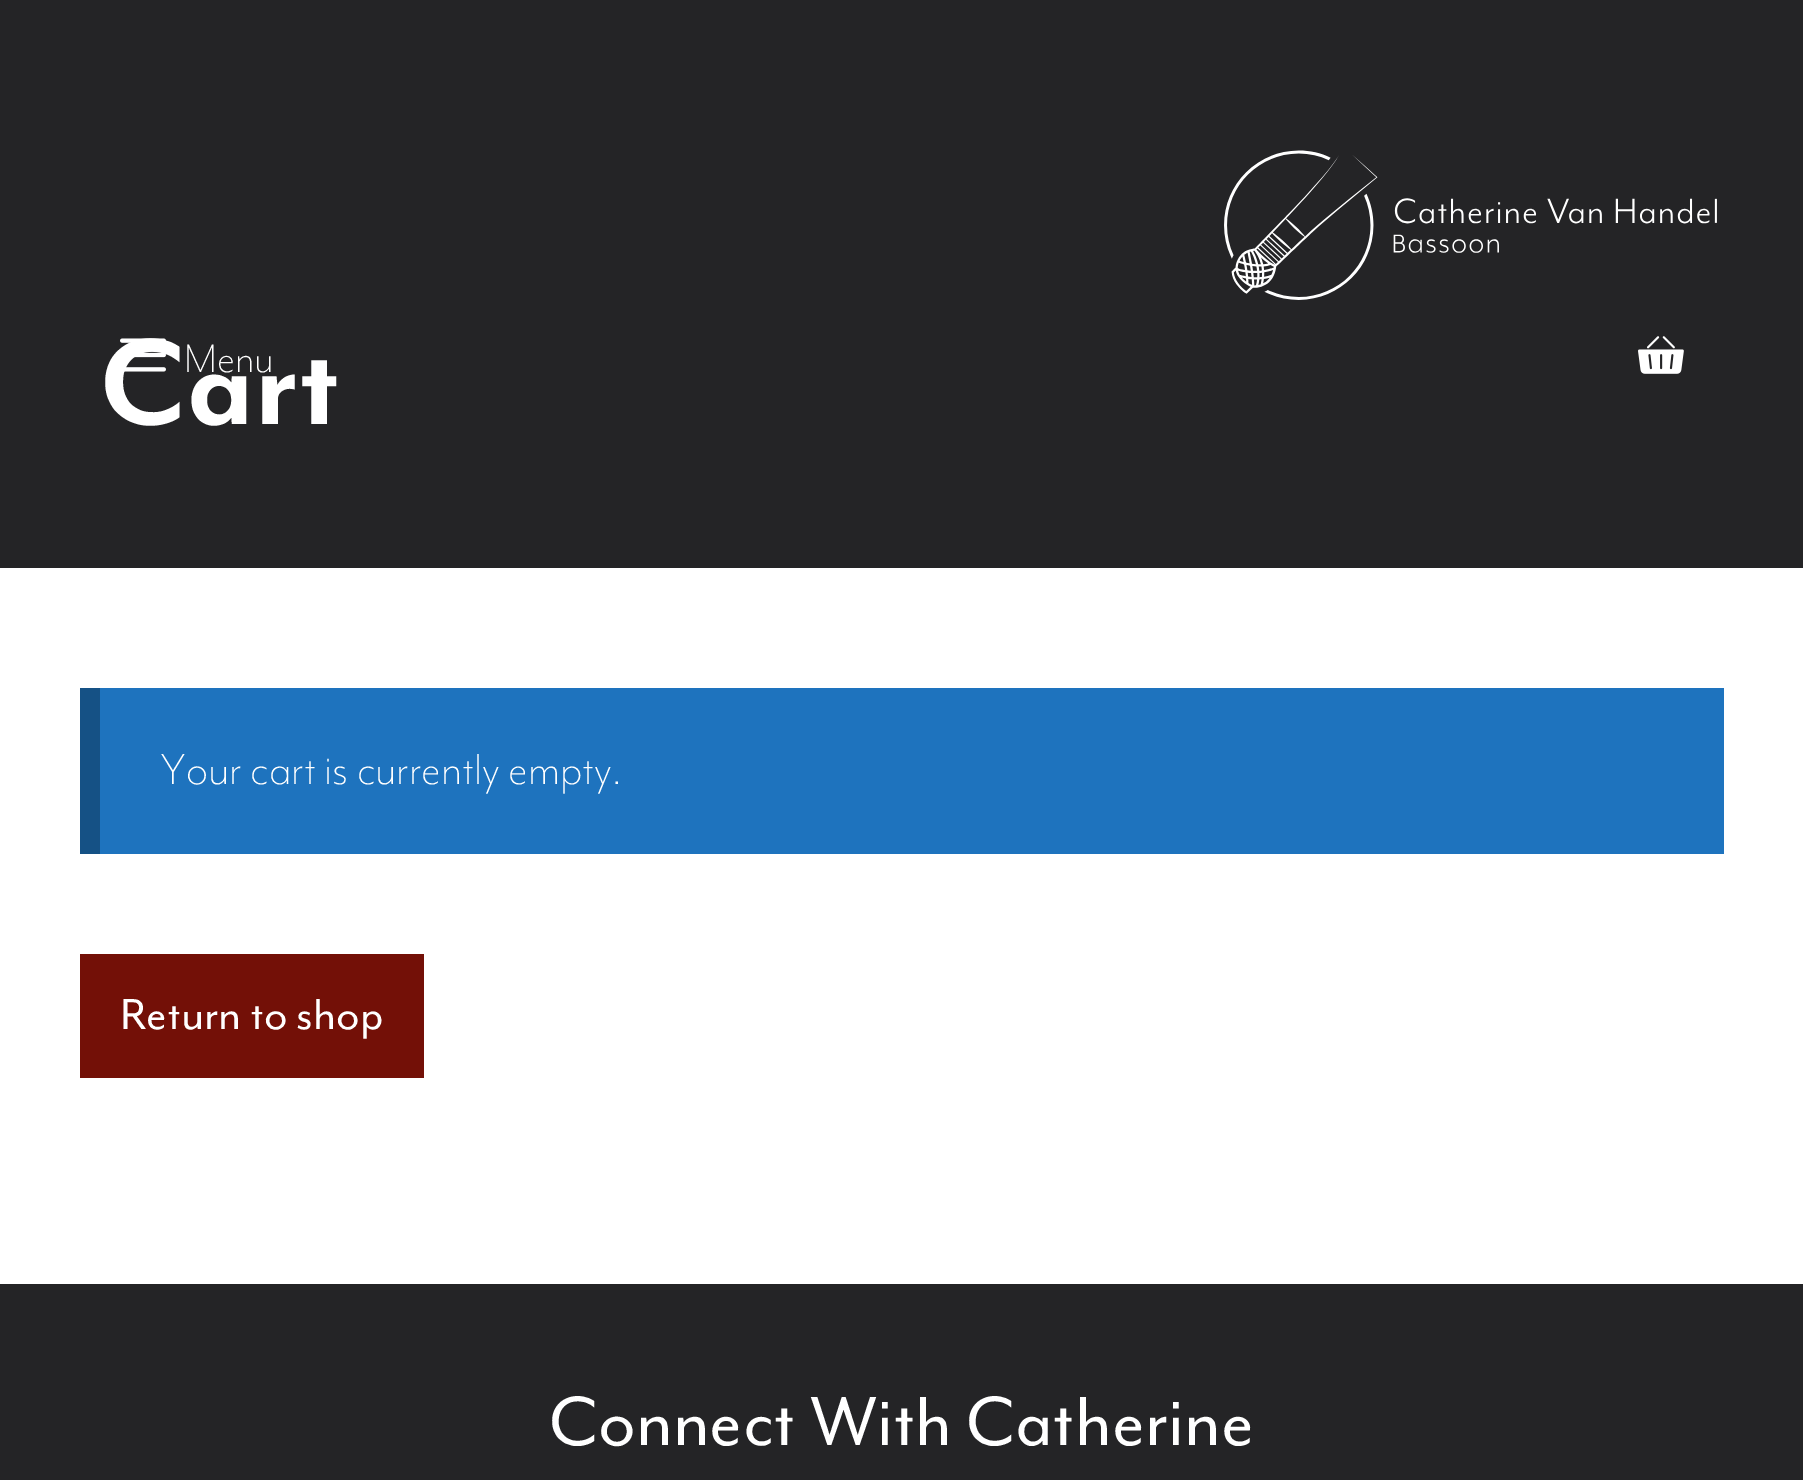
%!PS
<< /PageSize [1803 1480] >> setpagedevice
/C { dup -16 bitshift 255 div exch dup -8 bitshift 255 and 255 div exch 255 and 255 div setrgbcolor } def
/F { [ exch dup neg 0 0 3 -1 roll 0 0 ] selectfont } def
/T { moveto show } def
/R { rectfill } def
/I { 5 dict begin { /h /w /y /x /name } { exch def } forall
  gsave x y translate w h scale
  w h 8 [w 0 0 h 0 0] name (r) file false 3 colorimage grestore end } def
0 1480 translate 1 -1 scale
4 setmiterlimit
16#FFFFFF C
0 0 1803 1480 R
16#242426 C
0 0 1803 568 R
/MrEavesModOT-Bold 140 F
16#FFFFFF C
(Cart) 100 424 T
(1.rgb) 1224 150 493 150 I
(2.rgb) 120 338 46 34 I
/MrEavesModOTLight-Light 46 F
(Menu) 184 372 T
(3.rgb) 1638 336 46 38 I
16#1E73BE C
100 688 1624 166 R
16#155185 C
80 688 20 166 R
/MrEavesModOTLight-Light 50 F
16#FFFFFF C
(Your cart is currently empty.) 160 784 T
16#731007 C
80 954 344 124 R
/MrEavesModOT-Regular 50 F
16#FFFFFF C
(Return to shop) 120 1029 T
16#242426 C
0 1284 1803 196 R
/MrEavesModOT-Regular 80 F
16#FFFFFF C
(Connect With Catherine) 549 1445 T
showpage
